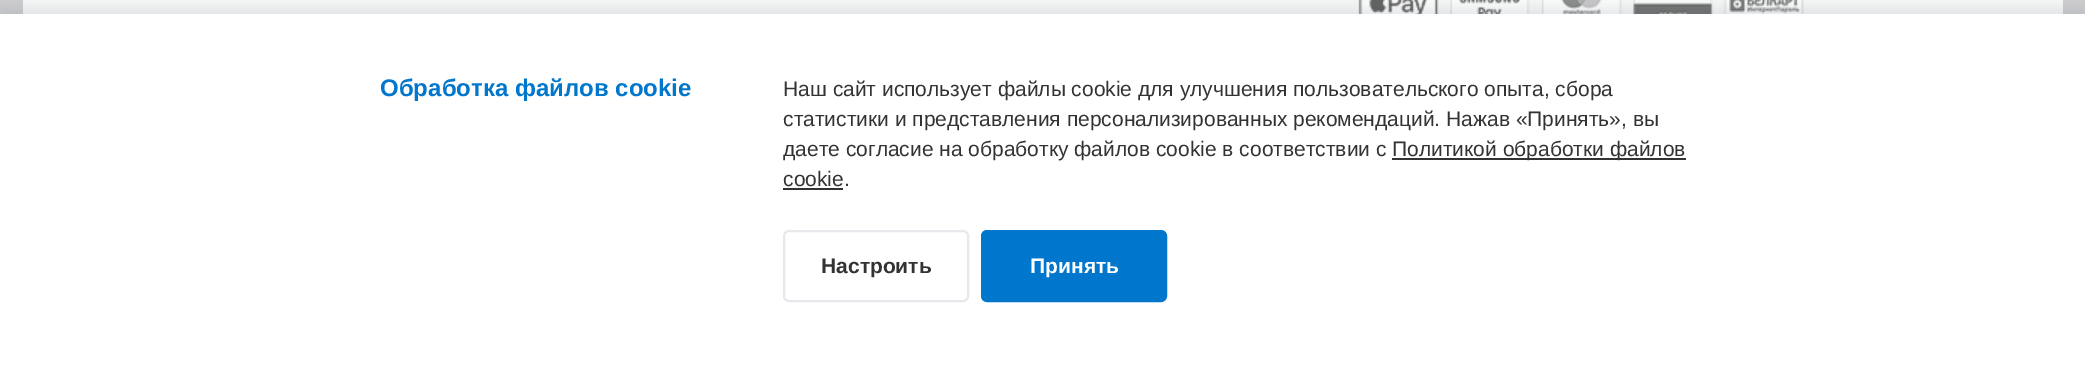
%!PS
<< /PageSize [2085 373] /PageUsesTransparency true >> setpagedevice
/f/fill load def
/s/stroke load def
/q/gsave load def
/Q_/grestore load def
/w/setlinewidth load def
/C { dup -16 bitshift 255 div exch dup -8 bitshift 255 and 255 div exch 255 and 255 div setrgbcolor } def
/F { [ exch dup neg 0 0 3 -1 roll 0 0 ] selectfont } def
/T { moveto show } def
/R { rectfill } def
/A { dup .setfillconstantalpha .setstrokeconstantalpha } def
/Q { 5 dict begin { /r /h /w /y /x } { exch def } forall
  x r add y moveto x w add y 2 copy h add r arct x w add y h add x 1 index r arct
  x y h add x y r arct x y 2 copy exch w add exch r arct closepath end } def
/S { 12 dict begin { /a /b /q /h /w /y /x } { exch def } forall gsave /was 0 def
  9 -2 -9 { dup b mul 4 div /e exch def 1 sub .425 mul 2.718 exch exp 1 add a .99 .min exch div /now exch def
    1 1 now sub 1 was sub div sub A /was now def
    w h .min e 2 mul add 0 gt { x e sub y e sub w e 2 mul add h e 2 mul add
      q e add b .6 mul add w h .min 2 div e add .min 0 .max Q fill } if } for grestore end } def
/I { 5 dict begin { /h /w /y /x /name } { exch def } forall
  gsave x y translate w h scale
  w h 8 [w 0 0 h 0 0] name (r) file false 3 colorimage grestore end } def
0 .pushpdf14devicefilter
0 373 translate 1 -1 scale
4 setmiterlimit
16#CECECE C
0 0 2085 373 R
16#F6F6F6 C
23 0 2040 14 R
(1.rgb) 1358 0 446 14 I
16#223C50 C
0 8 2085 360 0 6 .1 S
16#FFFFFF C
0 14 2085 359 R
/LiberationSans-Bold 24 F
16#0077CC C
(Обработка файлов cookie) 380 96 T
/LiberationSans-Regular 21 F
16#333333 C
(Наш сайт использует файлы cookie для улучшения пользовательского опыта, сбора) 783 96 T
(статистики и представления персонализированных рекомендаций. Нажав «Принять», вы) 783 126 T
(даете согласие на обработку файлов cookie в соответствии с) 783 156 T
1392 158 294 2 R
(Политикой обработки файлов) 1392 156 T
(cookie.) 783 186 T
783 188 60 2 R
16#E6E8EB C
2 w
784 231 184 70 5 Q s
/LiberationSans-Bold 21 F
16#333333 C
(Настроить) 821 273 T
16#0077CC C
982 231 184 70 5 Q q f Q_
s
16#FFFFFF C
(Принять) 1030 273 T
.poppdf14devicefilter showpage
